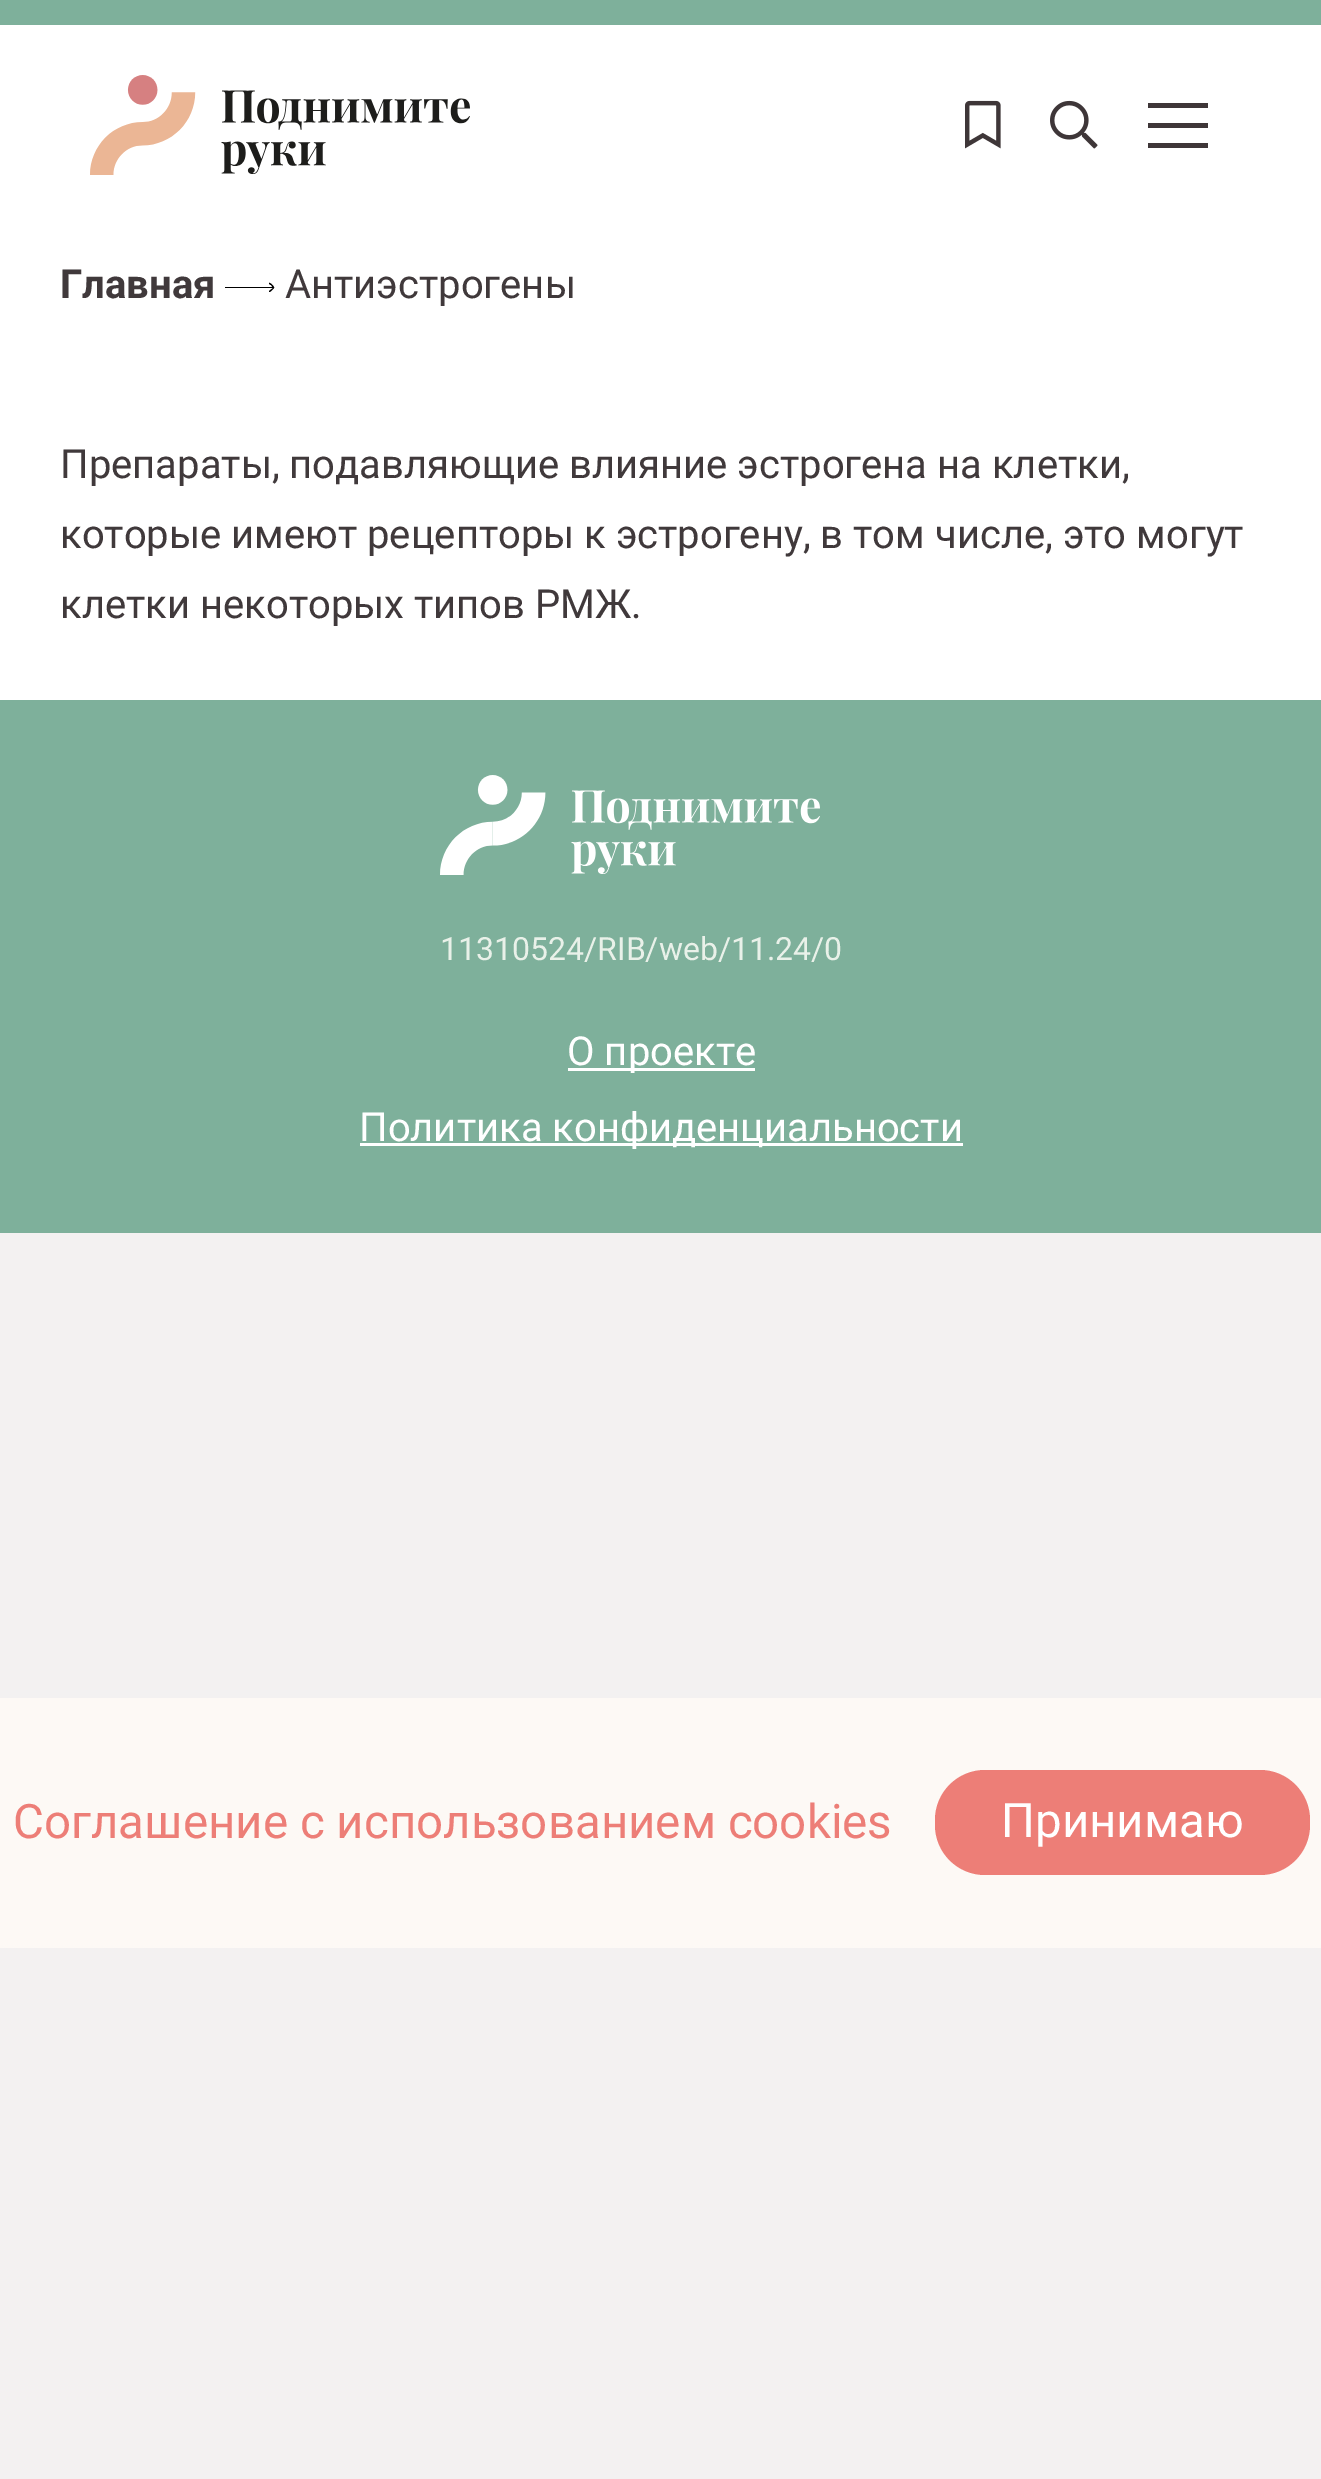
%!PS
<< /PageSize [1321 2479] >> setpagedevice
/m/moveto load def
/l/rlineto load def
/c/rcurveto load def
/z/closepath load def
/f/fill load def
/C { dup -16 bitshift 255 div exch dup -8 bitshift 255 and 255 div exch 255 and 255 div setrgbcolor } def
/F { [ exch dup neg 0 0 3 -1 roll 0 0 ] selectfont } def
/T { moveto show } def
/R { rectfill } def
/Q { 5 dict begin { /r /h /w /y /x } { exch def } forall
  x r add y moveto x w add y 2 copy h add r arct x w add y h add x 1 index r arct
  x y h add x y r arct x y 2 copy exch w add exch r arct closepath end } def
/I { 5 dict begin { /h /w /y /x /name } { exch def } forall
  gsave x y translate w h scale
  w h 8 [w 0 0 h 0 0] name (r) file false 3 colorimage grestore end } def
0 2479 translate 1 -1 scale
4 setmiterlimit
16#F3F1F1 C
0 0 1321 2479 R
16#FFFFFF C
0 25 1321 675 R
16#7EB09B C
0 0 1321 25 R
(1.rgb) 90 75 380 100 I
(2.rgb) 965 100 36 49 I
(3.rgb) 1050 100 48 49 I
16#3E3638 C
1148 123 60 5 R
1148 103 60 5 R
1148 143 60 5 R
/Roboto-Bold 40 F
16#40393B C
(Главная) 60 298 T
16#000000 C
274 288 m 1 -1 -4 -6 -5 -5 c 0 1 1 2 2 2 c 2 3 l -4 3 l 0 3 4 -2 5 -3 c z 225 288 m 49 0 l 0 -1 l -49 0 l z f
/Roboto-Regular 40 F
16#40393B C
(Антиэстрогены) 285 298 T
(Препараты, подавляющие влияние эстрогена на клетки,) 60 478 T
(которые имеют рецепторы к эстрогену, в том числе, это могут) 60 548 T
(клетки некоторых типов РМЖ.) 60 618 T
16#7EB09B C
0 700 1321 533 R
(4.rgb) 440 775 380 100 I
/Roboto-Regular 32 F
16#E9F1E9 C
(11310524/RIB/web/11.24/0) 440 960 T
16#FFFFFF C
568 1068 187 3 R
/Roboto-Regular 40 F
(О проекте) 567 1065 T
360 1143 603 3 R
(Политика конфиденциальности) 359 1141 T
16#FDF9F5 C
0 1698 1321 250 R
/Roboto-Regular 47.5 F
16#ED7E77 C
(Соглашение с использованием cookies) 13 1838 T
935 1770 375 105 50 Q f
16#FFFFFF C
(Принимаю) 1001 1837 T
showpage
